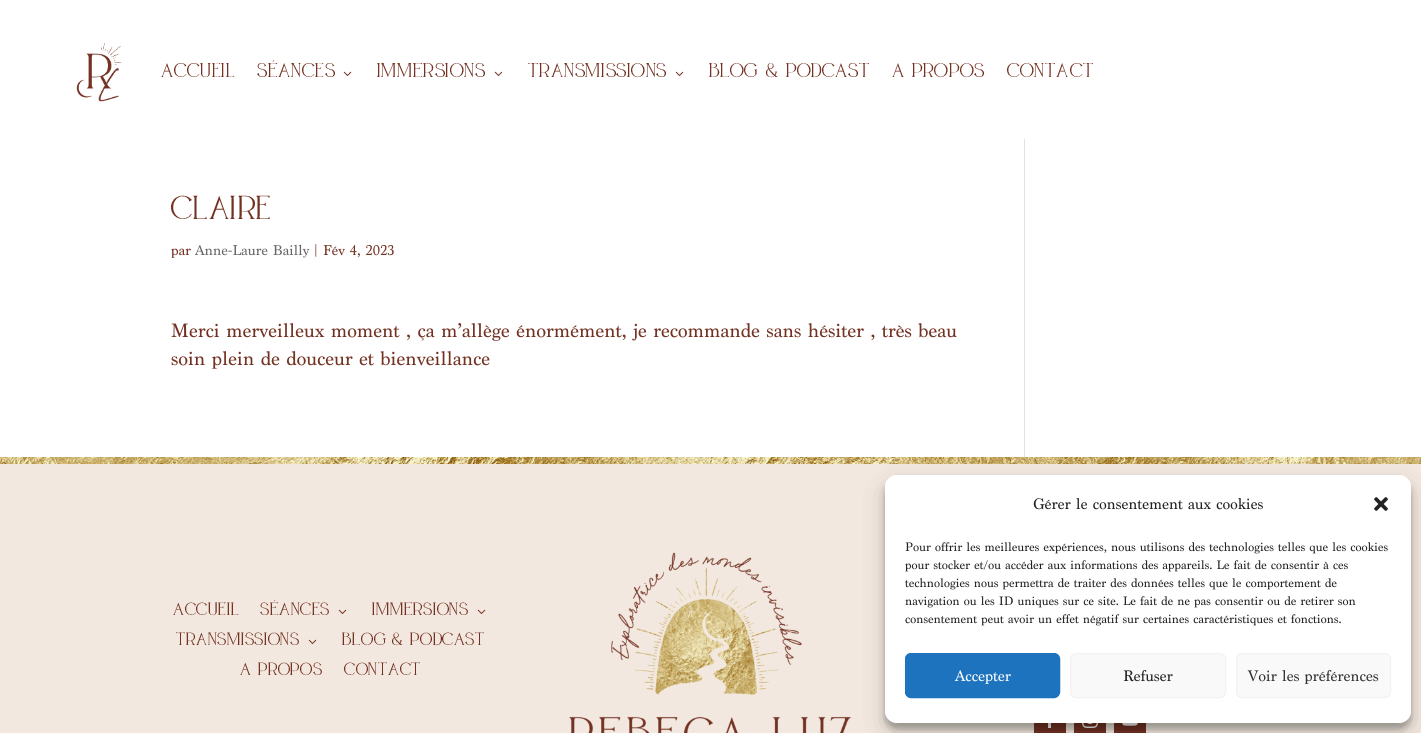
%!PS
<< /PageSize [1421 733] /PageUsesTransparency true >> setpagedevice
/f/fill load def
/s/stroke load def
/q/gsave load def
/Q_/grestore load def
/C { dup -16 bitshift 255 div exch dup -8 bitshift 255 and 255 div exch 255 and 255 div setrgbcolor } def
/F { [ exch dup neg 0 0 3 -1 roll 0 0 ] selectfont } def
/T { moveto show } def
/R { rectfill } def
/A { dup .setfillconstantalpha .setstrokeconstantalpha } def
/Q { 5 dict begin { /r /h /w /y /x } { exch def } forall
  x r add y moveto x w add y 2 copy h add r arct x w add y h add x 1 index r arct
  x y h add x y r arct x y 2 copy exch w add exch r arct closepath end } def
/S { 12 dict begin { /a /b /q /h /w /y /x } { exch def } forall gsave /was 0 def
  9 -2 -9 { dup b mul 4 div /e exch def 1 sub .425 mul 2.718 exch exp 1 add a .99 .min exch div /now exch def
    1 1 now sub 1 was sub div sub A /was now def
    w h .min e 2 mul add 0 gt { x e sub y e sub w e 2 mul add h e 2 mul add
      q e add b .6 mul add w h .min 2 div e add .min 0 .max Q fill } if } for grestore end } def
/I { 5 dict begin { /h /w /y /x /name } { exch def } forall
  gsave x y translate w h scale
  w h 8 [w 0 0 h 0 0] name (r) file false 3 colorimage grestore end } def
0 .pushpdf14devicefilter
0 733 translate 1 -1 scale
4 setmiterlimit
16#FFFFFF C
0 0 1421 733 R
(1.rgb) 76 43 46 59 I
/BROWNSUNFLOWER-Regular 18 F
16#733122 C
(Accueil) 161 77 T
(Séances) 257 77 T
(2.rgb) 343 71 9 5 I
(IMMERSIONS) 377 77 T
(2.rgb) 494 71 9 5 I
(Transmissions) 528 77 T
(2.rgb) 675 71 9 5 I
(BLOG & PODCAST) 709 77 T
(A propos) 892 77 T
(Contact) 1007 77 T
/BROWNSUNFLOWER-Regular 30 F
(Claire) 171 219 T
(3.rgb) 171 248 20 10 I
(4.rgb) 194 244 116 14 I
(5.rgb) 315 244 2 13 I
(6.rgb) 323 244 71 14 I
(7.rgb) 171 323 786 18 I
(8.rgb) 171 351 319 18 I
16#E2E2E2 C
1024 139 1 318 R
(9.rgb) 0 457 1421 7 I
16#F2E8DF C
0 464 1421 269 R
/BROWNSUNFLOWER-Regular 16 F
16#733122 C
(Accueil) 173 615 T
(Séances) 260 615 T
(10.rgb) 338 609 9 5 I
(IMMERSIONS) 372 615 T
(10.rgb) 477 609 9 5 I
(Transmissions) 176 645 T
(10.rgb) 308 639 9 5 I
(BLOG & PODCAST) 342 645 T
(A propos) 240 675 T
(Contact) 344 675 T
(11.rgb) 569 552 283 181 I
1034 723 32 10 R
(12.rgb) 1048 723 4 5 I
1074 723 32 10 R
(13.rgb) 1082 723 16 5 I
1114 723 32 10 R
(14.rgb) 1122 723 16 3 I
16#000000 C
885 481 526 248 12 3 .23 S
885 485 526 248 12 10 .19 S
16#FFFFFF C
885 475 526 248 12 Q f
(15.rgb) 1033 498 230 12 I
(16.rgb) 1374 497 14 14 I
(17.rgb) 905 542 483 12 I
(18.rgb) 905 560 443 12 I
(19.rgb) 905 578 432 12 I
(20.rgb) 905 596 451 12 I
(21.rgb) 905 614 436 12 I
16#1E73BE C
905.5 653.5 154 44 5.5 Q q f Q_
s
(22.rgb) 954 670 57 14 I
16#F9F9F9 C
1070.5 653.5 155 44 5.5 Q q f Q_
16#F2F2F2 C
s
(23.rgb) 1123 670 50 12 I
16#F9F9F9 C
1236.5 653.5 154 44 5.5 Q q f Q_
16#F2F2F2 C
s
(24.rgb) 1247 670 132 14 I
.poppdf14devicefilter showpage
